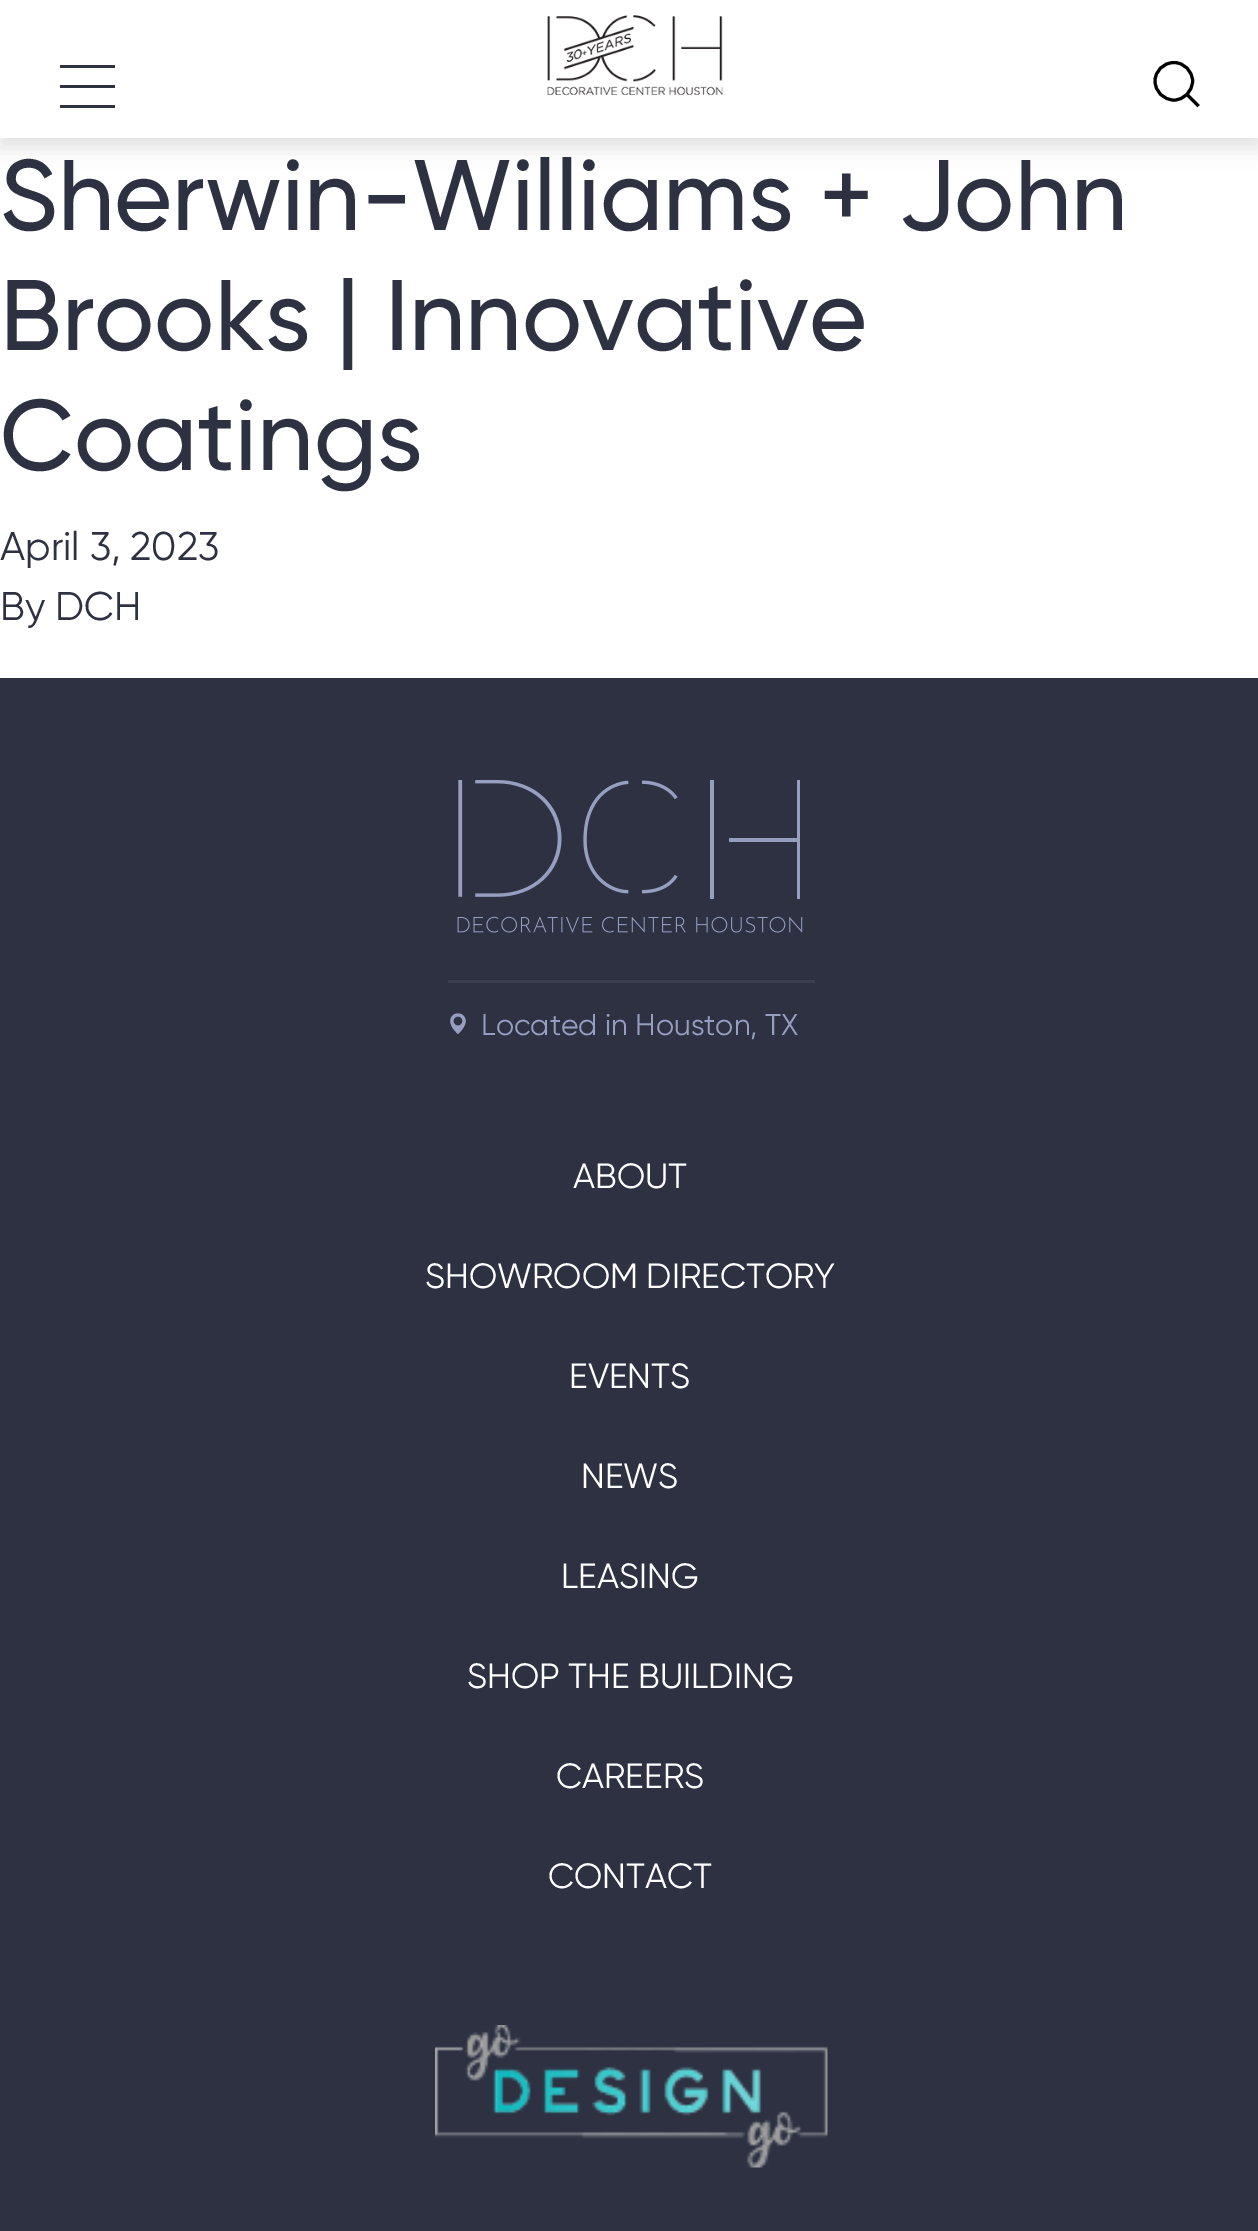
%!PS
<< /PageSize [1258 2231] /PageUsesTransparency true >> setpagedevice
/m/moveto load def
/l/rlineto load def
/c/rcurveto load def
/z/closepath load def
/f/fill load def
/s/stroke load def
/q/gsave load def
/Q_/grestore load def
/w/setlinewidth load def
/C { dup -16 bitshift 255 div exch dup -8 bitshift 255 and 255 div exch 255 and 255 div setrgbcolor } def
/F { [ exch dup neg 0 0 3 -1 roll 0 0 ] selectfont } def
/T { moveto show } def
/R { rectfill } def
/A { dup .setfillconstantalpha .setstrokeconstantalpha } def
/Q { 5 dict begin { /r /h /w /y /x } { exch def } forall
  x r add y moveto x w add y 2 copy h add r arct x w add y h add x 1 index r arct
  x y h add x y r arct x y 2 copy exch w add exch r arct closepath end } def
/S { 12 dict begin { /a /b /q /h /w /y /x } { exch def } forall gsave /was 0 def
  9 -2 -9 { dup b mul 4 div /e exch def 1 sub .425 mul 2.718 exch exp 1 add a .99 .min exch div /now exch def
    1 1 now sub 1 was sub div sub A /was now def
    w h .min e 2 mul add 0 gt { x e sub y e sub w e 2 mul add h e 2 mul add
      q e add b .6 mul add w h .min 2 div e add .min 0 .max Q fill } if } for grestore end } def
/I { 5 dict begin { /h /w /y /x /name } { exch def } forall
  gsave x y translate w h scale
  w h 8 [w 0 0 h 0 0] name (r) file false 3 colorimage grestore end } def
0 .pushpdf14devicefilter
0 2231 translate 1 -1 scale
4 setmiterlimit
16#FFFFFF C
0 0 1258 2231 R
q
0 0 m 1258 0 l 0 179 l -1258 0 l z 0 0 m 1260 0 l 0 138 l -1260 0 l z eoclip newpath
16#828282 C
0 10 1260 138 0 10 .25 S
Q_
16#2D3142 C
60 65 m 55 0 l 0 3 l -55 0 l z 60 85 m 55 0 l 0 3 l -55 0 l z 60 105 m 55 0 l 0 3 l -55 0 l z f
(1.rgb) 547 15 176 80 I
16#000000 C
3 w
2 setlinecap
1188.5 96 m 9 9 l 1174 100 m 10 0 18.5 -8.5 18.5 -19 c 0 -10 -8.5 -18.5 -18.5 -18.5 c -10.5 0 -19 8.5 -19 18.5 c 0 10.5 8.5 19 19 19 c z s
/Gilroy-Medium 100 F
16#2D3142 C
(Sherwin-Williams + John) 0 230 T
(Brooks | Innovative) 0 350 T
(Coatings) 0 470 T
/Gilroy-Regular 40 F
(April 3, 2023) 0 560 T
(By DCH) 0 620 T
0 678 1258 1553 R
(2.rgb) 457 780 346 153 I
16#3A3E50 C
448 980 367 3 R
(3.rgb) 450 1013 16 21 I
/Gilroy-Regular 30 F
16#979FC1 C
(Located in Houston, TX) 481 1035 T
/Gilroy-Regular 35 F
16#FFFFFF C
(ABOUT) 573 1188 T
(SHOWROOM DIRECTORY) 425 1288 T
(EVENTS) 569 1388 T
(NEWS) 581 1488 T
(LEASING) 561 1588 T
(SHOP THE BUILDING) 467 1688 T
(CAREERS) 556 1788 T
(CONTACT) 548 1888 T
(4.rgb) 435 2025 393 143 I
.poppdf14devicefilter showpage
